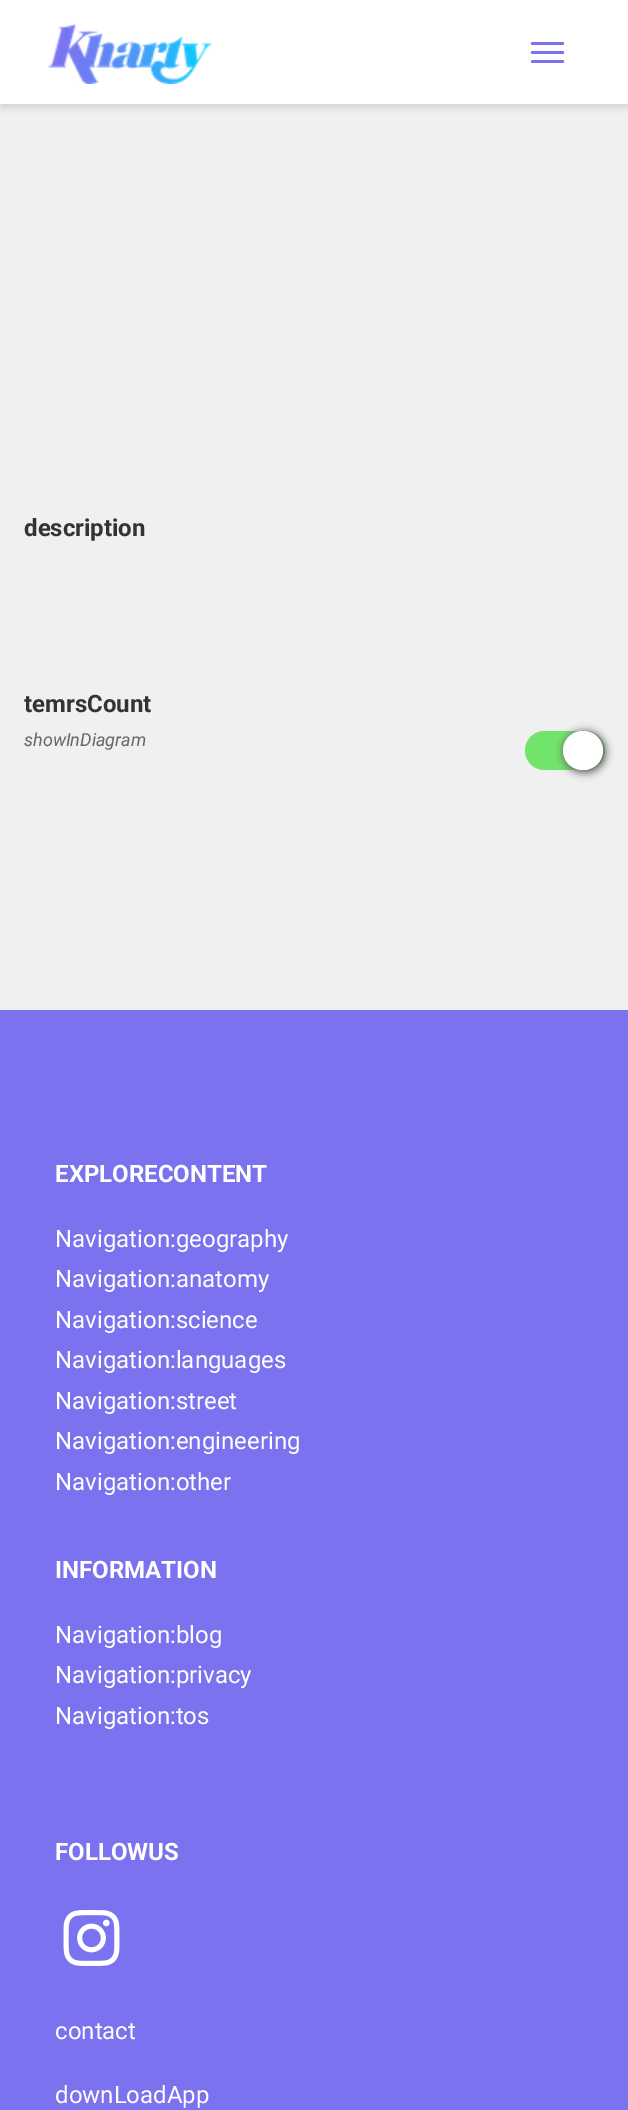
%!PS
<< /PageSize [628 2110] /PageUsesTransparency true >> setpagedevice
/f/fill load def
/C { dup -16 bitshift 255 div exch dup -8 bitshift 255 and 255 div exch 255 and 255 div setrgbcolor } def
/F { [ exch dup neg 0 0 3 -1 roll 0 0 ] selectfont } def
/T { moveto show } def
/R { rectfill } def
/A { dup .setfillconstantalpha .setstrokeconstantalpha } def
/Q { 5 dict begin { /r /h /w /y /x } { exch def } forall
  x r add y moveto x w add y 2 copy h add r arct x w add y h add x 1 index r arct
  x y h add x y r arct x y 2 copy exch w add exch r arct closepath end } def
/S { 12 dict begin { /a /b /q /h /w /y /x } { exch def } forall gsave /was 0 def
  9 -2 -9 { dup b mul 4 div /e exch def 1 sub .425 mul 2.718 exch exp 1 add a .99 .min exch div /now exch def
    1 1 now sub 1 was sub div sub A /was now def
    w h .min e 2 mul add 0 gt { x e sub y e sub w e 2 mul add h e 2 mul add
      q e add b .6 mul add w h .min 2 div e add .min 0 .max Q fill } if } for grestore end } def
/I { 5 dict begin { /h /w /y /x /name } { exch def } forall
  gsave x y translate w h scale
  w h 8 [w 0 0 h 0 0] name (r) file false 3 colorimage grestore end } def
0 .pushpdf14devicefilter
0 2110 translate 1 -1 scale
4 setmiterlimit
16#F0F0F0 C
0 0 628 2110 R
16#808080 C
0 2 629 103 0 7.5 .12 S
0 6 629 104 0 4 .14 S
2 5 625 100 0 3 .12 S
16#FFFFFF C
0 0 628 104 R
(1.rgb) 48 23 165 61 I
16#7B72F0 C
531 42 33 3 1.5 Q f
531 51 33 3 1.5 Q f
531 60 33 3 1.5 Q f
/Roboto-Bold 24 F
16#333333 C
(description) 24 536 T
(temrsCount) 24 712 T
/Roboto-Italic 18 F
16#666666 C
(showInDiagram) 24 746 T
16#73E46B C
525 731 80 39 19.5 Q f
16#666666 C
563 731 43 42 21 4 1 S
16#FFFFFF C
563 731 40 39 19.5 Q f
16#7B72F0 C
0 1010 628 1100 R
/Roboto-Bold 24 F
16#FFFFFF C
(EXPLORECONTENT) 55 1182 T
/Roboto-Regular 24 F
(Navigation:geography) 55 1247 T
(Navigation:anatomy) 55 1287 T
(Navigation:science) 55 1328 T
(Navigation:languages) 55 1368 T
(Navigation:street) 55 1409 T
(Navigation:engineering) 55 1449 T
(Navigation:other) 55 1490 T
/Roboto-Bold 24 F
(INFORMATION) 55 1578 T
/Roboto-Regular 24 F
(Navigation:blog) 55 1643 T
(Navigation:privacy) 55 1683 T
(Navigation:tos) 55 1724 T
/Roboto-Bold 24 F
(FOLLOWUS) 55 1860 T
(2.rgb) 63 1910 57 56 I
/Roboto-Regular 24 F
(contact) 55 2039 T
(downLoadApp) 55 2103 T
.poppdf14devicefilter showpage
